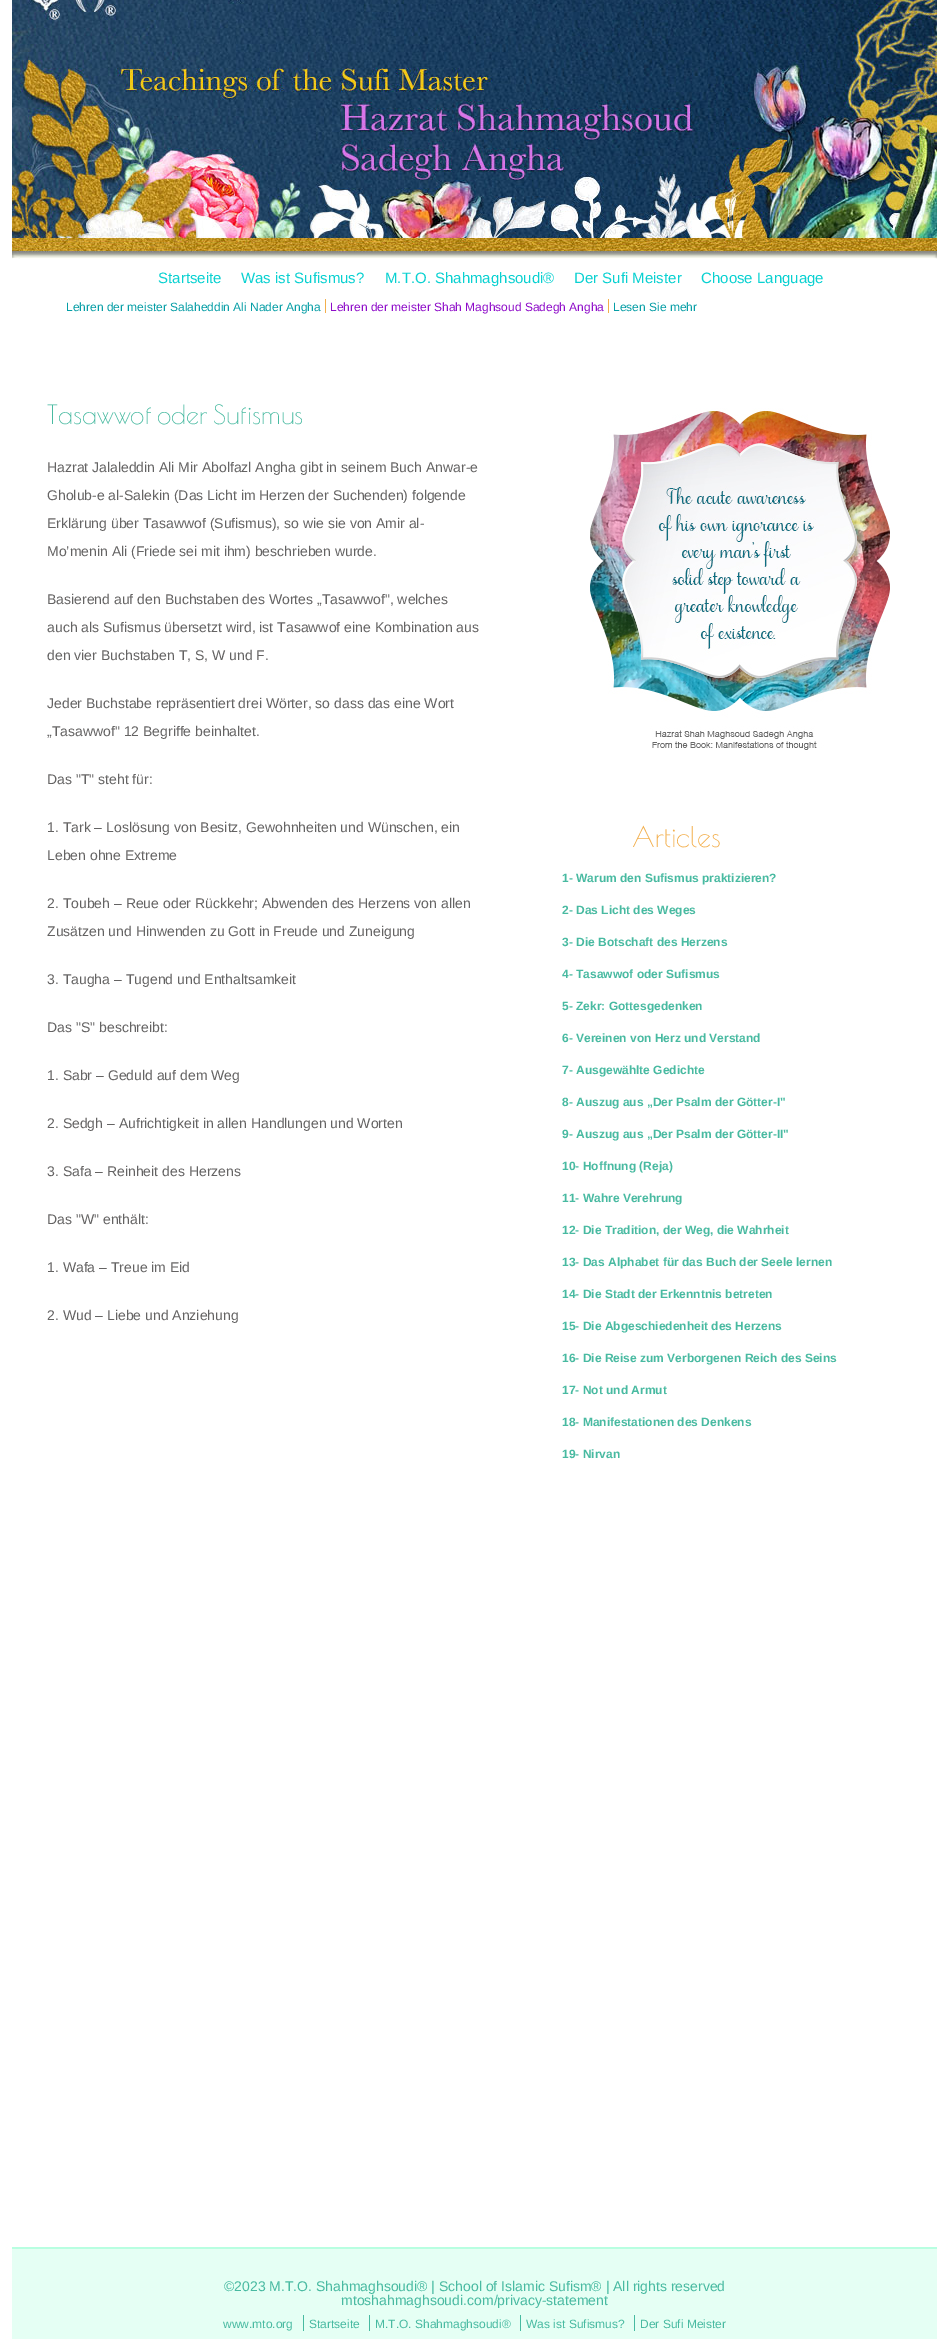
%!PS
<< /PageSize [949 2339] >> setpagedevice
/C { dup -16 bitshift 255 div exch dup -8 bitshift 255 and 255 div exch 255 and 255 div setrgbcolor } def
/F { [ exch dup neg 0 0 3 -1 roll 0 0 ] selectfont } def
/T { moveto show } def
/R { rectfill } def
/I { 5 dict begin { /h /w /y /x /name } { exch def } forall
  gsave x y translate w h scale
  w h 8 [w 0 0 h 0 0] name (r) file false 3 colorimage grestore end } def
0 2339 translate 1 -1 scale
4 setmiterlimit
16#FFFFFF C
0 0 949 2339 R
(1.rgb) 12 0 925 259 I
/LiberationSans-Regular 15 F
16#09D1D1 C
(Startseite) 158 283 T
(Was ist Sufismus?) 241 283 T
(M.T.O. Shahmaghsoudi®) 385 283 T
(Der Sufi Meister) 574 283 T
(Choose Language) 701 283 T
16#F3AF4C C
325 299 1 14 R
/LiberationSans-Regular 12 F
16#069EA6 C
(Lehren der meister Salaheddin Ali Nader Angha) 66 311 T
16#F3AF4C C
608 299 1 14 R
16#8E0CC9 C
(Lehren der meister Shah Maghsoud Sadegh Angha) 330 311 T
16#069EA6 C
(Lesen Sie mehr) 613 311 T
/PoiretOne-Regular 26 F
16#48BAA1 C
(Tasawwof oder Sufismus) 47 424 T
/LiberationSans-Regular 14 F
16#646363 C
(Hazrat Jalaleddin Ali Mir Abolfazl Angha gibt in seinem Buch Anwar-e) 47 472 T
(Gholub-e al-Salekin \(Das Licht im Herzen der Suchenden\) folgende) 47 500 T
(Erklärung über Tasawwof \(Sufismus\), so wie sie von Amir al-) 47 528 T
(Mo’menin Ali \(Friede sei mit ihm\) beschrieben wurde.) 47 556 T
(Basierend auf den Buchstaben des Wortes „Tasawwof", welches) 47 604 T
(auch als Sufismus übersetzt wird, ist Tasawwof eine Kombination aus) 47 632 T
(den vier Buchstaben T, S, W und F.) 47 660 T
(Jeder Buchstabe repräsentiert drei Wörter, so dass das eine Wort) 47 708 T
(„Tasawwof" 12 Begriffe beinhaltet.) 47 736 T
(Das "T" steht für:) 47 784 T
(1. Tark – Loslösung von Besitz, Gewohnheiten und Wünschen, ein) 47 832 T
(Leben ohne Extreme) 47 860 T
(2. Toubeh – Reue oder Rückkehr; Abwenden des Herzens von allen) 47 908 T
(Zusätzen und Hinwenden zu Gott in Freude und Zuneigung) 47 936 T
(3. Taugha – Tugend und Enthaltsamkeit) 47 984 T
(Das "S" beschreibt:) 47 1032 T
(1. Sabr – Geduld auf dem Weg) 47 1080 T
(2. Sedgh – Aufrichtigkeit in allen Handlungen und Worten) 47 1128 T
(3. Safa – Reinheit des Herzens) 47 1176 T
(Das "W" enthält:) 47 1224 T
(1. Wafa – Treue im Eid) 47 1272 T
(2. Wud – Liebe und Anziehung) 47 1320 T
(2.rgb) 590 408 300 342 I
/PoiretOne-Regular 28 F
16#F3AF4C C
(Articles) 632 847 T
/LiberationSans-Bold 12 F
16#48BAA1 C
(1- Warum den Sufismus praktizieren?) 562 882 T
(2- Das Licht des Weges) 562 914 T
(3- Die Botschaft des Herzens) 562 946 T
(4- Tasawwof oder Sufismus) 562 978 T
(5- Zekr: Gottesgedenken) 562 1010 T
(6- Vereinen von Herz und Verstand) 562 1042 T
(7- Ausgewählte Gedichte) 562 1074 T
(8- Auszug aus „Der Psalm der Götter-I") 562 1106 T
(9- Auszug aus „Der Psalm der Götter-II") 562 1138 T
(10- Hoffnung \(Reja\)) 562 1170 T
(11- Wahre Verehrung) 562 1202 T
(12- Die Tradition, der Weg, die Wahrheit) 562 1234 T
(13- Das Alphabet für das Buch der Seele lernen) 562 1266 T
(14- Die Stadt der Erkenntnis betreten) 562 1298 T
(15- Die Abgeschiedenheit des Herzens) 562 1330 T
(16- Die Reise zum Verborgenen Reich des Seins) 562 1362 T
(17- Not und Armut) 562 1394 T
(18- Manifestationen des Denkens) 562 1426 T
(19- Nirvan) 562 1458 T
16#E5FFF4 C
12 2249 925 90 R
16#B8FFE1 C
12 2247 925 2 R
/LiberationSans-Regular 14 F
16#48BAA1 C
(©2023 M.T.O. Shahmaghsoudi® | School of Islamic Sufism® | All rights reserved) 224 2291 T
(mtoshahmaghsoudi.com/privacy-statement) 341 2305 T
/LiberationSans-Regular 12 F
(www.mto.org) 223 2328 T
303 2315 1 16 R
(Startseite) 309 2328 T
369 2315 1 16 R
(M.T.O. Shahmaghsoudi®) 375 2328 T
520 2315 1 16 R
(Was ist Sufismus?) 526 2328 T
634 2315 1 16 R
(Der Sufi Meister) 640 2328 T
showpage
